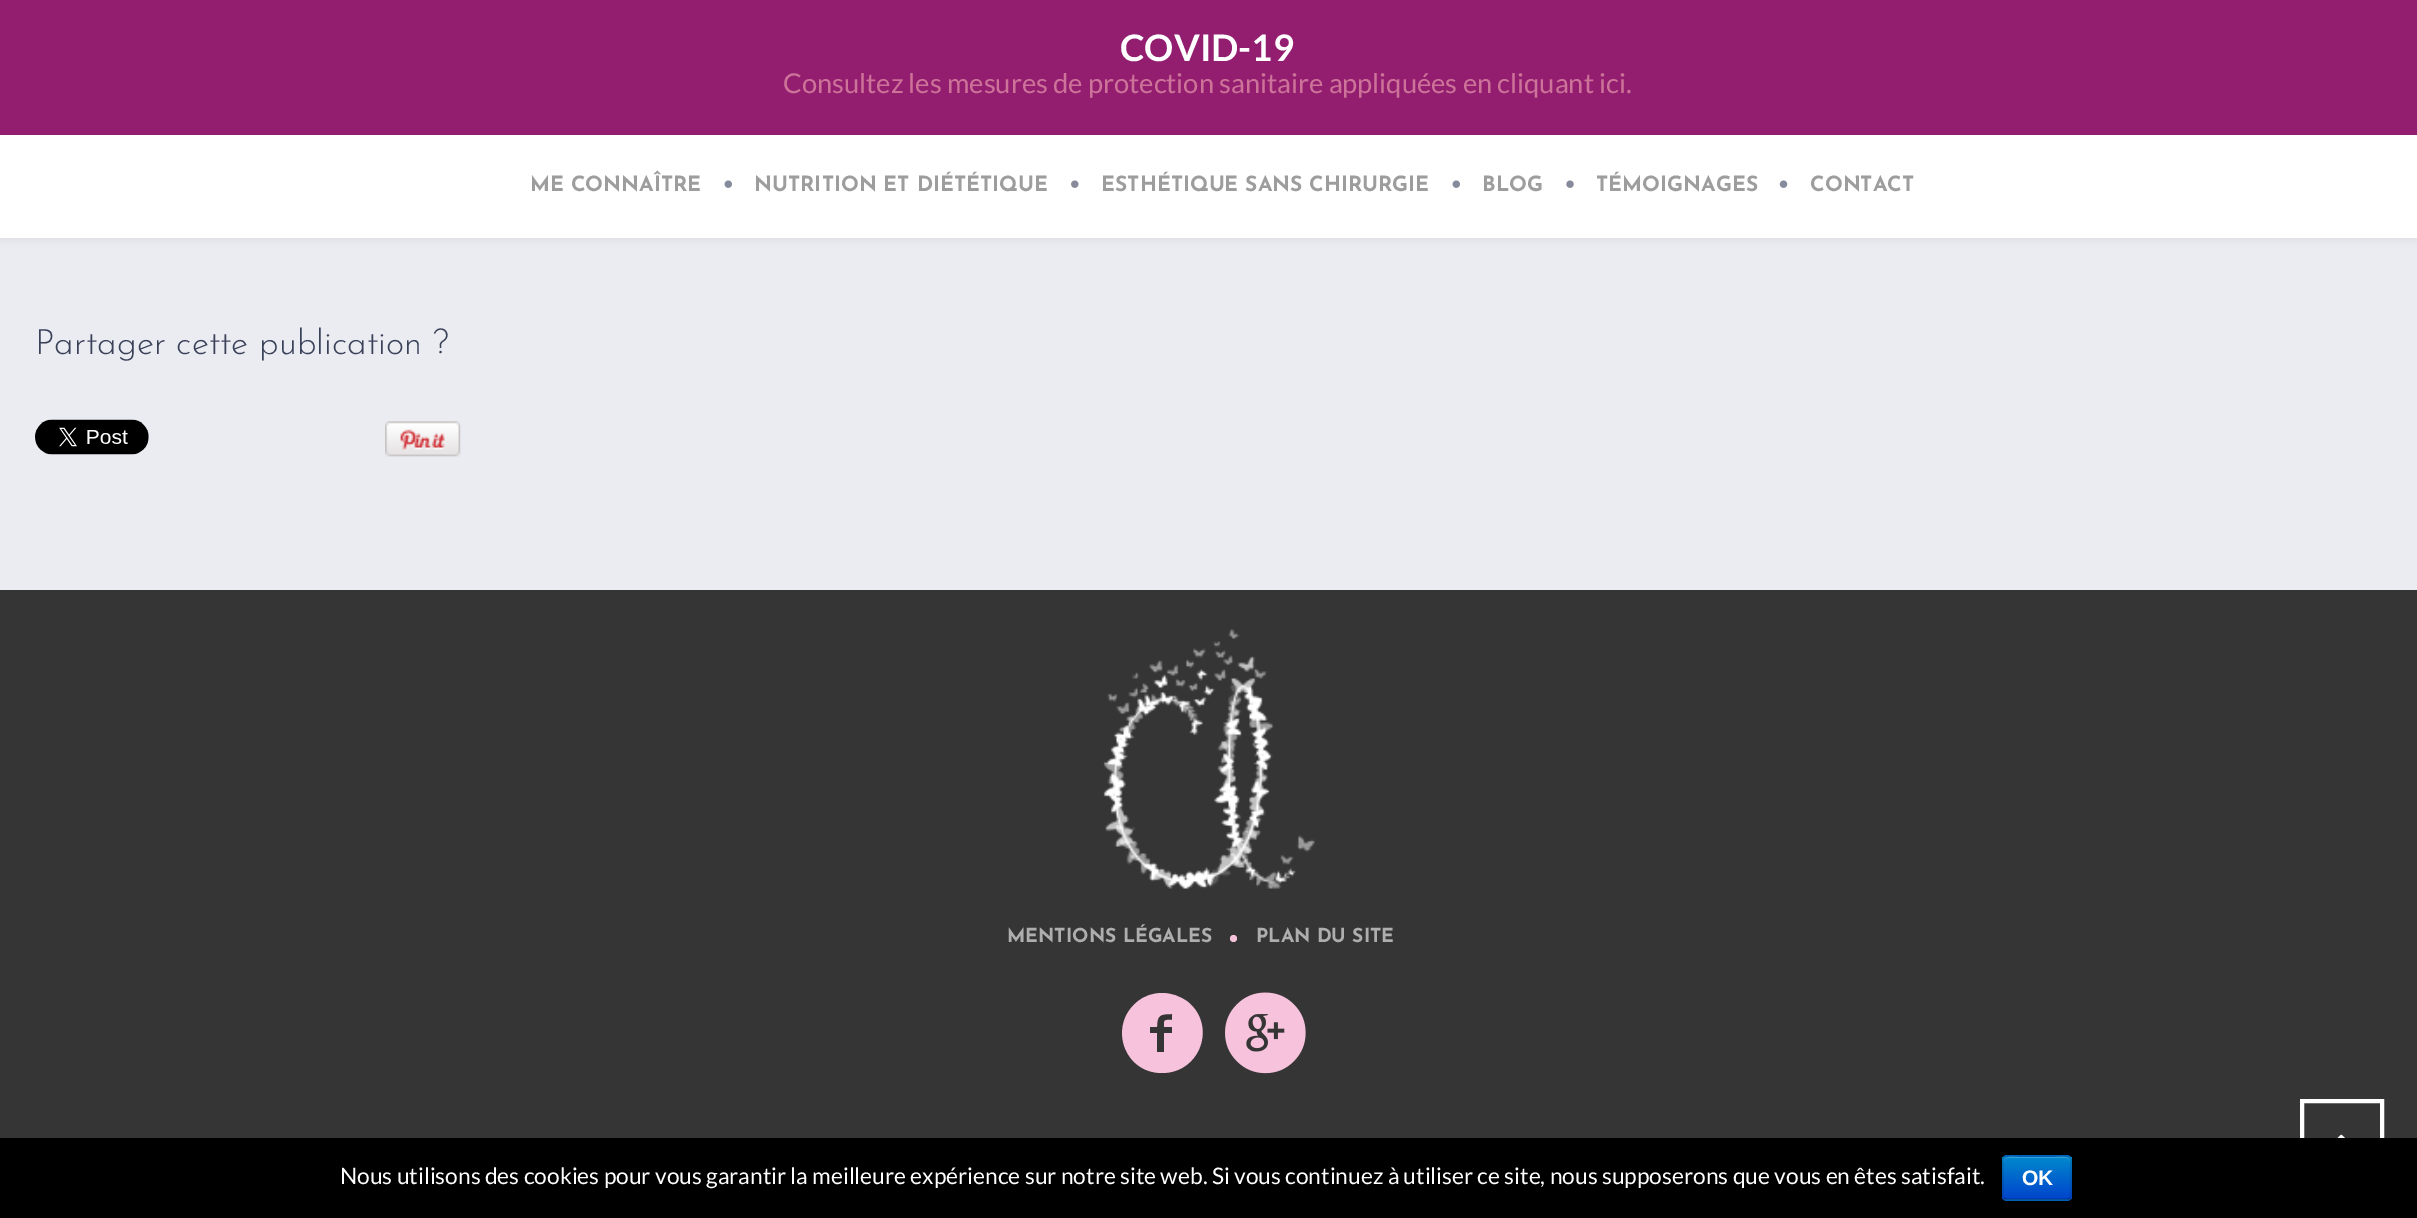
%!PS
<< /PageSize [2417 1218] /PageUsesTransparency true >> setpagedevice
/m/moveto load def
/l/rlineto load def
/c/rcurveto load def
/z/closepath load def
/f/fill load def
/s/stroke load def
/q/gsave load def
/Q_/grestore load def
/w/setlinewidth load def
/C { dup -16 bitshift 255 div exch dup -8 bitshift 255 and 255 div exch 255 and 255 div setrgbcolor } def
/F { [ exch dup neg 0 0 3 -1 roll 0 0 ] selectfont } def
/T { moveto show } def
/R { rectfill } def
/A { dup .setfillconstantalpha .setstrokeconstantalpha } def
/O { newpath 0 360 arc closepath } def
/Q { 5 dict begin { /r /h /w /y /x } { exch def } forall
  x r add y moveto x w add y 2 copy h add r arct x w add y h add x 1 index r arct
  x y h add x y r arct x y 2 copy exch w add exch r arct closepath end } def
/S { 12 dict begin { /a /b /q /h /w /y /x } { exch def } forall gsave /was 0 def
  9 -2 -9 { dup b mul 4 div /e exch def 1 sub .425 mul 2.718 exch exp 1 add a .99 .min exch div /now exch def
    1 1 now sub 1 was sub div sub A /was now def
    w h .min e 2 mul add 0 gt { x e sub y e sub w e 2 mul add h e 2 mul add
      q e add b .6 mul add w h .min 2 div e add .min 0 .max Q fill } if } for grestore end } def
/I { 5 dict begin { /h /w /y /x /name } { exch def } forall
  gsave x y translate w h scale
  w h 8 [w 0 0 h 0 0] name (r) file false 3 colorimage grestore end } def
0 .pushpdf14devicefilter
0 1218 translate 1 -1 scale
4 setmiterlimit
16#EBECF2 C
0 0 2417 1218 R
16#000000 C
0 135 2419 105 0 4.5 .05 S
16#931E70 C
0 0 2417 135 R
/Lato-Bold 36.5 F
16#FFFFFF C
(COVID-19) 1120 61 T
/Lato-Regular 27.3 F
16#CD7399 C
(Consultez les mesures de protection sanitaire appliquées en cliquant ici.) 783 93 T
16#FFFFFF C
0 135 2417 103 R
/JosefinSans-Bold 21 F
16#9D9D9D C
(ME CONNAÎTRE) 530 191 T
(1.rgb) 724 180 8 8 I
(NUTRITION ET DIÉTÉTIQUE) 754 191 T
(2.rgb) 1071 180 8 8 I
(ESTHÉTIQUE SANS CHIRURGIE) 1101 191 T
(1.rgb) 1452 180 8 8 I
(BLOG) 1482 191 T
(3.rgb) 1566 180 8 8 I
(TÉMOIGNAGES) 1596 191 T
(4.rgb) 1779 180 9 8 I
(CONTACT) 1810 191 T
/JosefinSans-Light 35 F
16#3A4259 C
(Partager cette publication ?) 35 354 T
(5.rgb) 35 419 114 36 I
(6.rgb) 385 421 76 36 I
16#353535 C
0 590 2417 548 R
16#FFFFFF C
4 w
2302 1101 80 80 rectstroke
(7.rgb) 2337 1134 8 4 I
(8.rgb) 1103 629 212 260 I
/JosefinSans-Bold 19.25 F
16#AEAEAE C
(MENTIONS LÉGALES) 1007 942 T
16#F7C3DC C
1233.5 938.5 3.5 O f
16#AEAEAE C
(PLAN DU SITE) 1256 942 T
16#F7C3DC C
1162 993 m 9 0 18 3 26 9 c 29 24 12 71 -26 71 c -38 0 -54 -47 -25 -71 c 7 -6 16 -9 25 -9 c z 1172 1020 m 0 -6 l -12 0 -15 1 -15 13 c -7 0 l 0 6 l 7 0 l 0 19 l 7 0 l 0 -19 l 8 0 l 0 -6 l -8 0 l 0 -8 0 -7 8 -7 c z f
(9.rgb) 1225 992 81 82 I
16#000000 C
0 1138 2417 80 R
/Lato-Regular 22.75 F
16#FFFFFF C
(Nous utilisons des cookies pour vous garantir la meilleure expérience sur notre site web. Si vous continuez à utiliser ce site, nous supposerons que vous en êtes satisfait.) 340 1184 T
16#006DCC C
2002 1155 70 46 5 Q f
q
2002 1155 70 46 5 Q clip newpath
q 2002 1157 m 70 0 l 0 42 l -70 0 l z clip newpath
<< /ShadingType 2 /ColorSpace /DeviceRGB /Coords [2037 1157 2037 1199] /Extend [true true] /Function << /FunctionType 2 /Domain [0 1] /C0 [0 .533 .8] /C1 [0 .267 .8] /N 1 >> >> shfill Q_
Q_
16#339FD6 C
2007 1158 m 60 0 l 2 0 3 2 3 4 c 0 -7 -9 -5 -14 -5 c -38 0 l -5 0 -14 -2 -14 5 c 0 -2 1 -4 3 -4 c z f
0.25 A
16#000000 C
1.8 w
2070 1198.5 m -3 1 l -60 0 l -3 -1 l s
0.1 A
2004 1198.5 m -.5 -1 -1 -2 -1 -3.5 c 0 -35 l 0 -1 .5 -2 1 -3 c 1 -.5 2 -1 3 -1 c 60 0 l 1 0 2 .5 3 1 c .5 1 1 2 1 3 c 0 35 l 0 1.5 -.5 2.5 -1 3.5 c s
/LiberationSans-Bold 21 F
1 A
16#FFFFFF C
(OK) 2022 1185 T
.poppdf14devicefilter showpage
